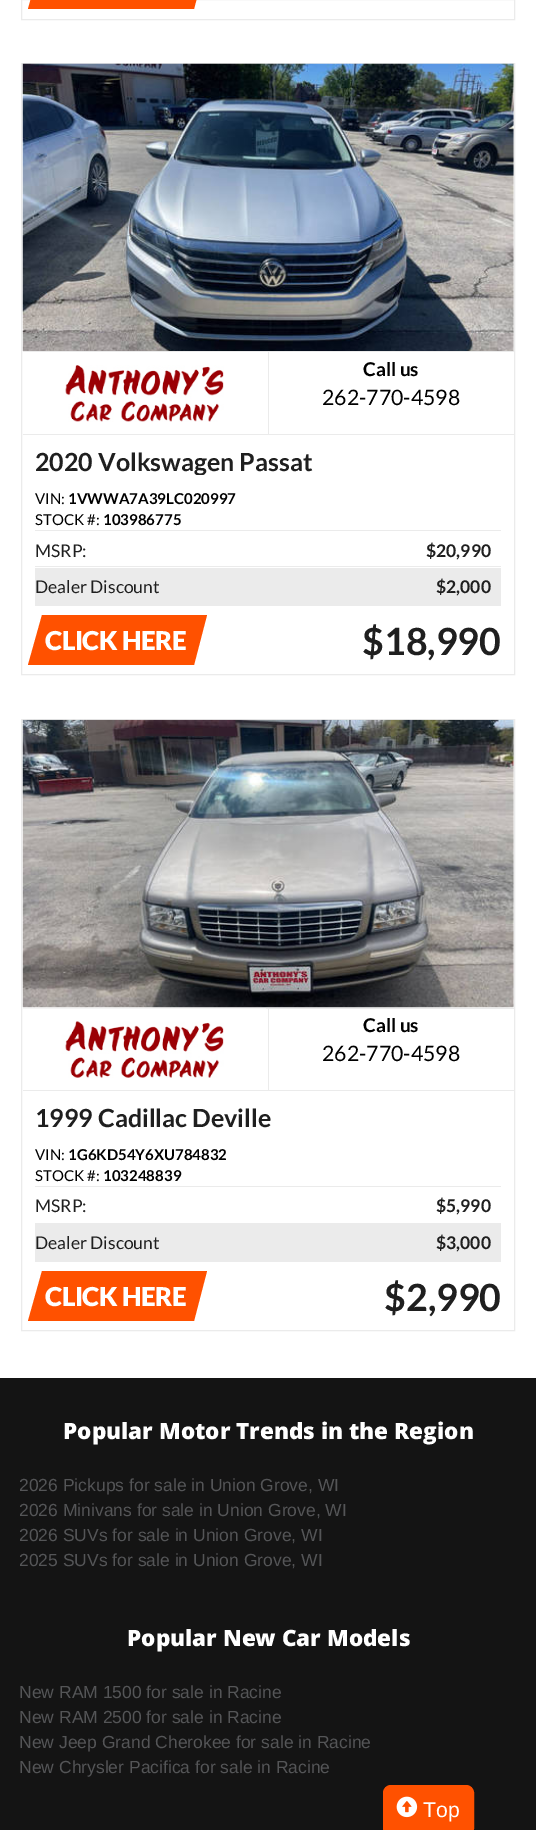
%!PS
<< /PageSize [536 1830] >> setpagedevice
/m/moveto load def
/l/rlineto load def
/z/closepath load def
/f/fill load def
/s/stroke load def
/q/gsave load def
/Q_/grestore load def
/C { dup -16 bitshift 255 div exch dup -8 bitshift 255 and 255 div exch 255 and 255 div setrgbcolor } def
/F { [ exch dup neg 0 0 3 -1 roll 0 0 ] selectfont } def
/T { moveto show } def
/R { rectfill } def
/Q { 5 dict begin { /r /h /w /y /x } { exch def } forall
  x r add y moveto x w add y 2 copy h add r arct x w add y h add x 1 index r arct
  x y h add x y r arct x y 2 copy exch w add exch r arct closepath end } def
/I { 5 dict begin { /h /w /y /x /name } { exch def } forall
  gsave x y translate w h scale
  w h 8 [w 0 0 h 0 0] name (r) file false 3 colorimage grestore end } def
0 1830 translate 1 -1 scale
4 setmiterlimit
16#FFFFFF C
0 0 536 1830 R
16#EBEBEB C
21.5 -.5 493 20 rectstroke
16#FF5100 C
42 -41 m 165 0 l -13 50 l -166 0 l z f
16#EBEBEB C
21.5 63.5 493 611 rectstroke
(1.rgb) 22 63 492 288 I
23 351 491 1 R
268 351 1 84 R
23 434 491 1 R
(2.rgb) 65 365 159 57 I
/Lato-Bold 19 F
16#000000 C
(Call us) 363 376 T
/Lato-Regular 21.25 F
(262-770-4598) 322 405 T
q
35 448 278 27 rectclip
/Lato-Bold 25 F
16#1F1F1F C
(2020 Volkswagen Passat) 35 471 T
Q_
/Lato-Regular 15 F
(VIN:) 35 504 T
/Lato-Bold 15 F
(1VWWA7A39LC020997) 68 504 T
/Lato-Regular 15 F
(STOCK #:) 35 525 T
/Lato-Bold 15 F
(103986775) 103 525 T
16#EBEBEB C
35 530 466 1 R
35 566 466 1 R
/Lato-Regular 17.5 F
16#1F1F1F C
(MSRP:) 35 557 T
/Lato-Bold 17.5 F
($20,990) 426 557 T
16#EBEBEB C
35 568 466 38 R
/Lato-Regular 17.5 F
16#1F1F1F C
(Dealer Discount) 35 593 T
/Lato-Bold 17.5 F
($2,000) 436 593 T
16#FF5100 C
42 615 m 165 0 l -13 50 l -166 0 l z f
/Lato-Black 26 F
16#FFFFFF C
45 650 m -.5 0 (CLICK HERE) ashow
/Lato-Bold 37.5 F
16#1F1F1F C
($18,990) 362 655 T
16#EBEBEB C
21.5 719.5 493 611 rectstroke
(3.rgb) 22 719 492 289 I
23 1008 491 1 R
268 1008 1 83 R
23 1090 491 1 R
(4.rgb) 23 1008 243 70 I
/Lato-Bold 19 F
16#000000 C
(Call us) 363 1032 T
/Lato-Regular 21.25 F
(262-770-4598) 322 1061 T
/Lato-Bold 25 F
16#1F1F1F C
(1999 Cadillac Deville) 35 1127 T
/Lato-Regular 15 F
16#000000 C
(VIN:) 35 1160 T
/Lato-Bold 15 F
(1G6KD54Y6XU784832) 68 1160 T
/Lato-Regular 15 F
(STOCK #:) 35 1181 T
/Lato-Bold 15 F
(103248839) 103 1181 T
16#EBEBEB C
35 1186 466 1 R
35 1223 466 39 R
/Lato-Regular 17.5 F
16#1F1F1F C
(MSRP:) 35 1212 T
/Lato-Bold 17.5 F
($5,990) 436 1212 T
/Lato-Regular 17.5 F
(Dealer Discount) 35 1249 T
/Lato-Bold 17.5 F
($3,000) 436 1249 T
16#FF5100 C
42 1271 m 165 0 l -13 50 l -166 0 l z f
/Lato-Black 26 F
16#FFFFFF C
45 1306 m -.5 0 (CLICK HERE) ashow
/Lato-Bold 37.5 F
16#1F1F1F C
($2,990) 384 1311 T
16#141414 C
0 1378 536 452 R
16#FF5100 C
383.5 1785.5 90 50 7.5 Q q f Q_
s
(5.rgb) 396 1796 22 22 I
/LiberationSans-Regular 21.25 F
16#FFFFFF C
(Top) 423 1817 T
/OpenSans-ExtraBold 22.5 F
(Popular Motor Trends in the Region) 63 1439 T
/LiberationSans-Regular 17.5 F
16#545557 C
(2026 Pickups for sale in Union Grove, WI) 19 1491 T
(2026 Minivans for sale in Union Grove, WI) 19 1516 T
(2026 SUVs for sale in Union Grove, WI) 19 1541 T
(2025 SUVs for sale in Union Grove, WI) 19 1566 T
/OpenSans-ExtraBold 22.5 F
16#FFFFFF C
(Popular New Car Models) 127 1646 T
/LiberationSans-Regular 17.5 F
16#545557 C
(New RAM 1500 for sale in Racine) 19 1698 T
(New RAM 2500 for sale in Racine) 19 1723 T
(New Jeep Grand Cherokee for sale in Racine) 19 1748 T
(New Chrysler Pacifica for sale in Racine) 19 1773 T
showpage
